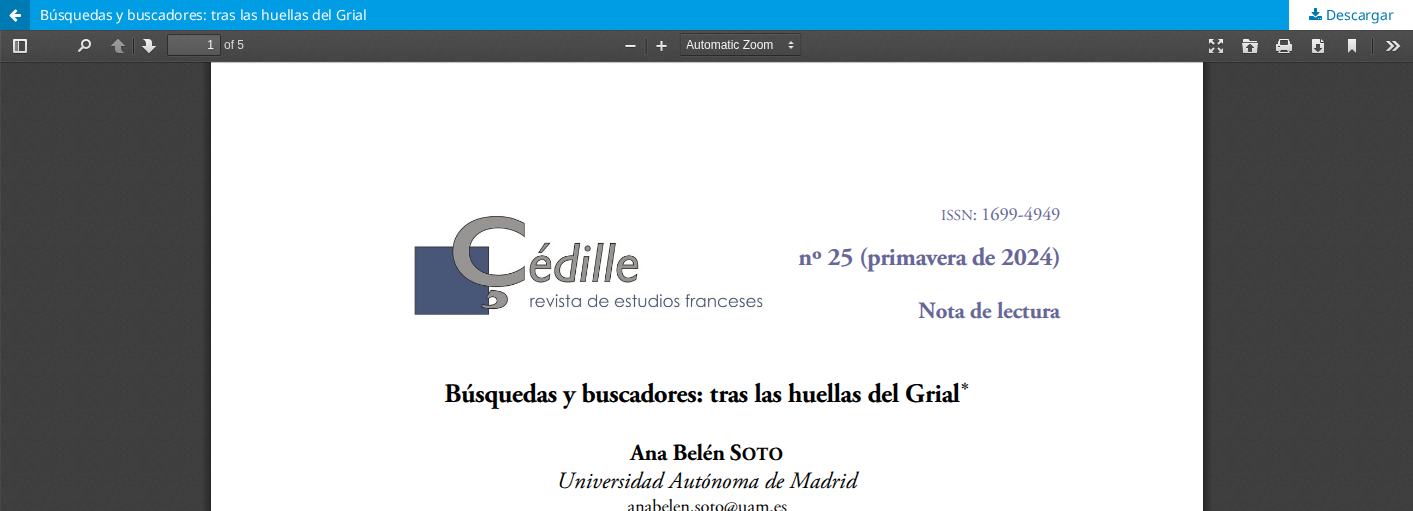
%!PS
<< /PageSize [1413 511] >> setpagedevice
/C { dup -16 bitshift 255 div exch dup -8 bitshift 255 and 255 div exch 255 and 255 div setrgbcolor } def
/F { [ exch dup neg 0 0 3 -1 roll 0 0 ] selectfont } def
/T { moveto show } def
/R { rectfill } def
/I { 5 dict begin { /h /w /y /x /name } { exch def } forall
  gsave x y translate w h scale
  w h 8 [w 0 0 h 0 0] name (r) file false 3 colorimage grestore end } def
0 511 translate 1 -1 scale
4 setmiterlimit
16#FFFFFF C
0 0 1413 511 R
16#009DE5 C
30 0 1259 30 R
16#007AB2 C
0 0 30 30 R
(1.rgb) 9 9 12 13 I
/NotoSans-Regular 14 F
16#FFFFFF C
(Búsquedas y buscadores: tras las huellas del Grial) 40 20 T
(2.rgb) 1309 8 13 12 I
16#007AB2 C
(Descargar) 1326 20 T
(3.rgb) 0 30 1413 481 I
showpage
